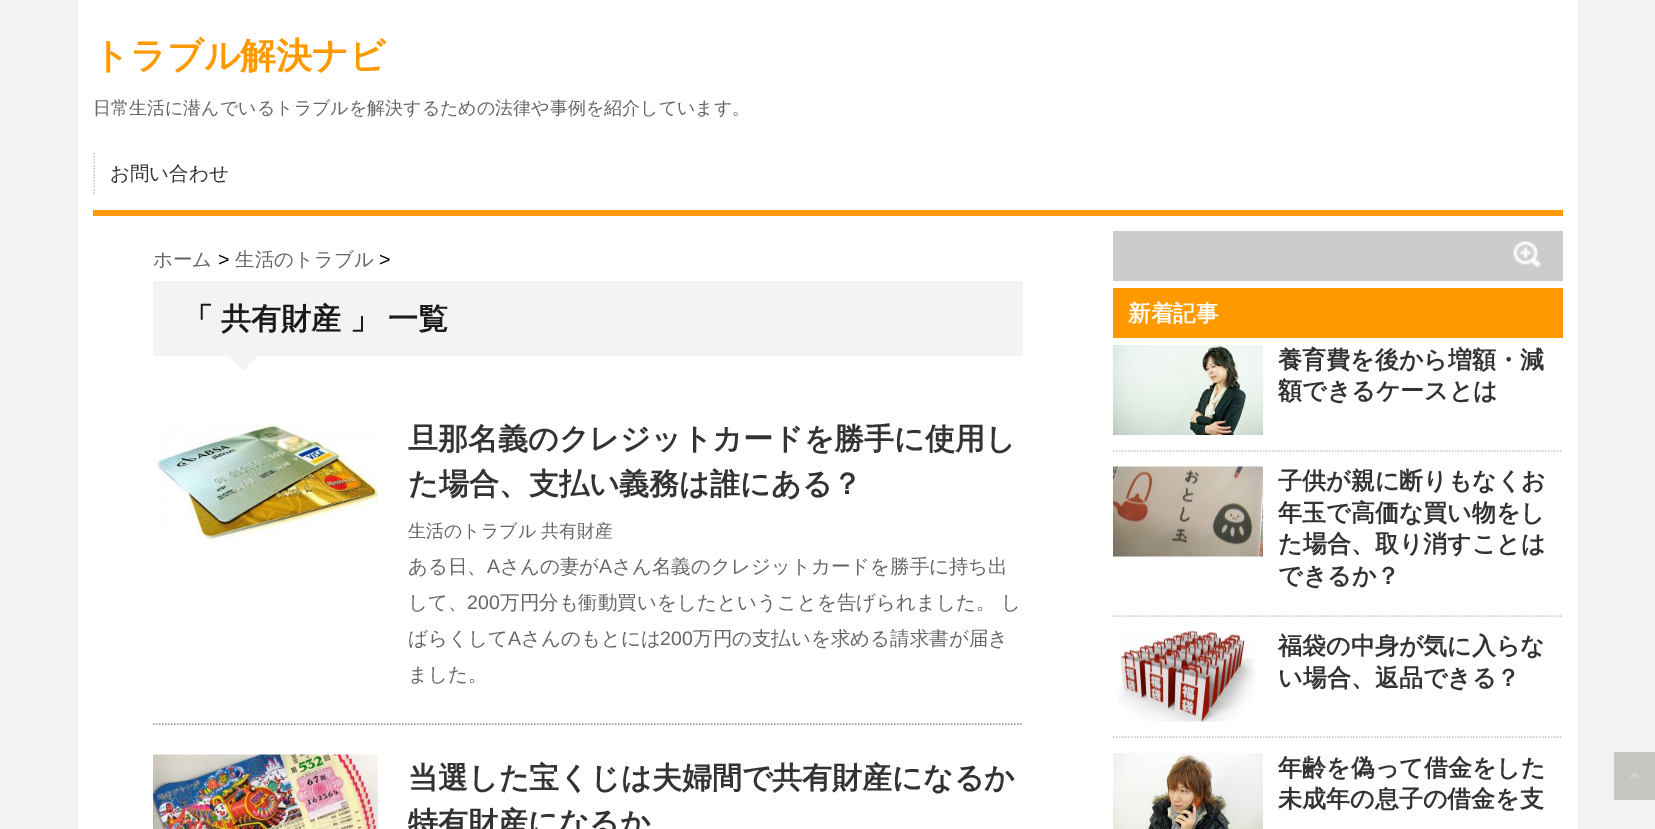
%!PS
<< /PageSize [1655 829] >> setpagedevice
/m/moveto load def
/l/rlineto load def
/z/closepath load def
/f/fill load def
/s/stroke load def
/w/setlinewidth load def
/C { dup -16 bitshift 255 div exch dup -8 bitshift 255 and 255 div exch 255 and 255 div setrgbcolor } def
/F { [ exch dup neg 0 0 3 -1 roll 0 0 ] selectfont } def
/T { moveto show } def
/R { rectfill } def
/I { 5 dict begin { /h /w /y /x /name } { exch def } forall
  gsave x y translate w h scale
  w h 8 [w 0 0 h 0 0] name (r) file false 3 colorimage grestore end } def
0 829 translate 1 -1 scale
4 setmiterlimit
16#F2F2F2 C
0 0 1655 829 R
16#FFFFFF C
78 0 1500 829 R
16#FF9900 C
93 210 1470 6 R
/WenQuanYiZenHei-Bold 36 F
(トラブル解決ナビ) 93 68 T
/WenQuanYiZenHei-Medium 18 F
16#666666 C
(日常生活に潜んでいるトラブルを解決するための法律や事例を紹介しています。) 93 114 T
16#CCCCCC C
1.5 w
[1.5 1.5] 0 setdash
94 153 m 0 42 l s
/WenQuanYiZenHei-Medium 19.5 F
16#333333 C
(お問い合わせ) 110 180 T
16#666666 C
(ホーム) 153 266 T
/LiberationSans-Regular 19.5 F
16#000000 C
(>) 218 266 T
/WenQuanYiZenHei-Medium 19.5 F
16#666666 C
(生活のトラブル) 235 266 T
/LiberationSans-Regular 19.5 F
16#000000 C
(>) 379 266 T
16#F3F3F3 C
153 281 870 75 R
/WenQuanYiZenHei-Bold 30 F
16#1A1A1A C
(「) 183 329 T
(共有財産) 221 329 T
350 329 m -1 0 32 (」 一覧) widthshow
16#F3F3F3 C
228 355.5 m 30 0 l -15 15 l z f
16#999999 C
153 724 m 870 0 l s
(1.rgb) 153 423 225 124 I
16#333333 C
(旦那名義のクレジットカードを勝手に使用し) 408 449 T
(た場合、支払い義務は誰にある？) 408 494 T
/WenQuanYiZenHei-Medium 18 F
16#666666 C
(生活のトラブル) 408 537 T
(共有財産) 541 537 T
/WenQuanYiZenHei-Medium 19.5 F
(ある日、) 408 573 T
/LiberationSans-Regular 19.5 F
(A) 487 573 T
/WenQuanYiZenHei-Medium 19.5 F
(さんの妻が) 500 573 T
/LiberationSans-Regular 19.5 F
(A) 599 573 T
/WenQuanYiZenHei-Medium 19.5 F
(さん名義のクレジットカードを勝手に持ち出) 612 573 T
(して、) 408 609 T
/LiberationSans-Regular 19.5 F
(200) 467 609 T
/WenQuanYiZenHei-Medium 19.5 F
(万円分も衝動買いをしたということを告げられました。 し) 500 609 T
(ばらくして) 408 645 T
/LiberationSans-Regular 19.5 F
(A) 508 645 T
/WenQuanYiZenHei-Medium 19.5 F
(さんのもとには) 521 645 T
/LiberationSans-Regular 19.5 F
(200) 660 645 T
/WenQuanYiZenHei-Medium 19.5 F
(万円の支払いを求める請求書が届き) 693 645 T
(ました。) 408 681 T
(2.rgb) 153 754 225 75 I
/WenQuanYiZenHei-Bold 30 F
16#333333 C
(当選した宝くじは夫婦間で共有財産になるか) 408 788 T
(特有財産になるか) 408 833 T
16#CCCCCC C
1113 231 450 50 R
(3.rgb) 1513 241 28 27 I
16#FF9900 C
1113 288 450 50 R
/WenQuanYiZenHei-Bold 22.5 F
16#FFFFFF C
(新着記事) 1128 321 T
16#CCCCCC C
1113 451 m 450 0 l s
(4.rgb) 1113 345 150 90 I
/WenQuanYiZenHei-Bold 24 F
16#333333 C
(養育費を後から増額・減) 1278 368 T
(額できるケースとは) 1278 399 T
16#CCCCCC C
1113 616 m 450 0 l s
(5.rgb) 1113 466 150 91 I
16#333333 C
(子供が親に断りもなくお) 1278 489 T
(年玉で高価な買い物をし) 1278 521 T
(た場合、取り消すことは) 1278 552 T
(できるか？) 1278 584 T
16#CCCCCC C
1113 737 m 450 0 l s
(6.rgb) 1118 631 138 91 I
16#333333 C
(福袋の中身が気に入らな) 1278 654 T
(い場合、返品できる？) 1278 686 T
(7.rgb) 1113 753 150 76 I
(年齢を偽って借金をした) 1278 776 T
(未成年の息子の借金を支) 1278 807 T
16#C8C6C2 C
1614 752 41 48 R
(8.rgb) 1630 773 10 6 I
showpage
